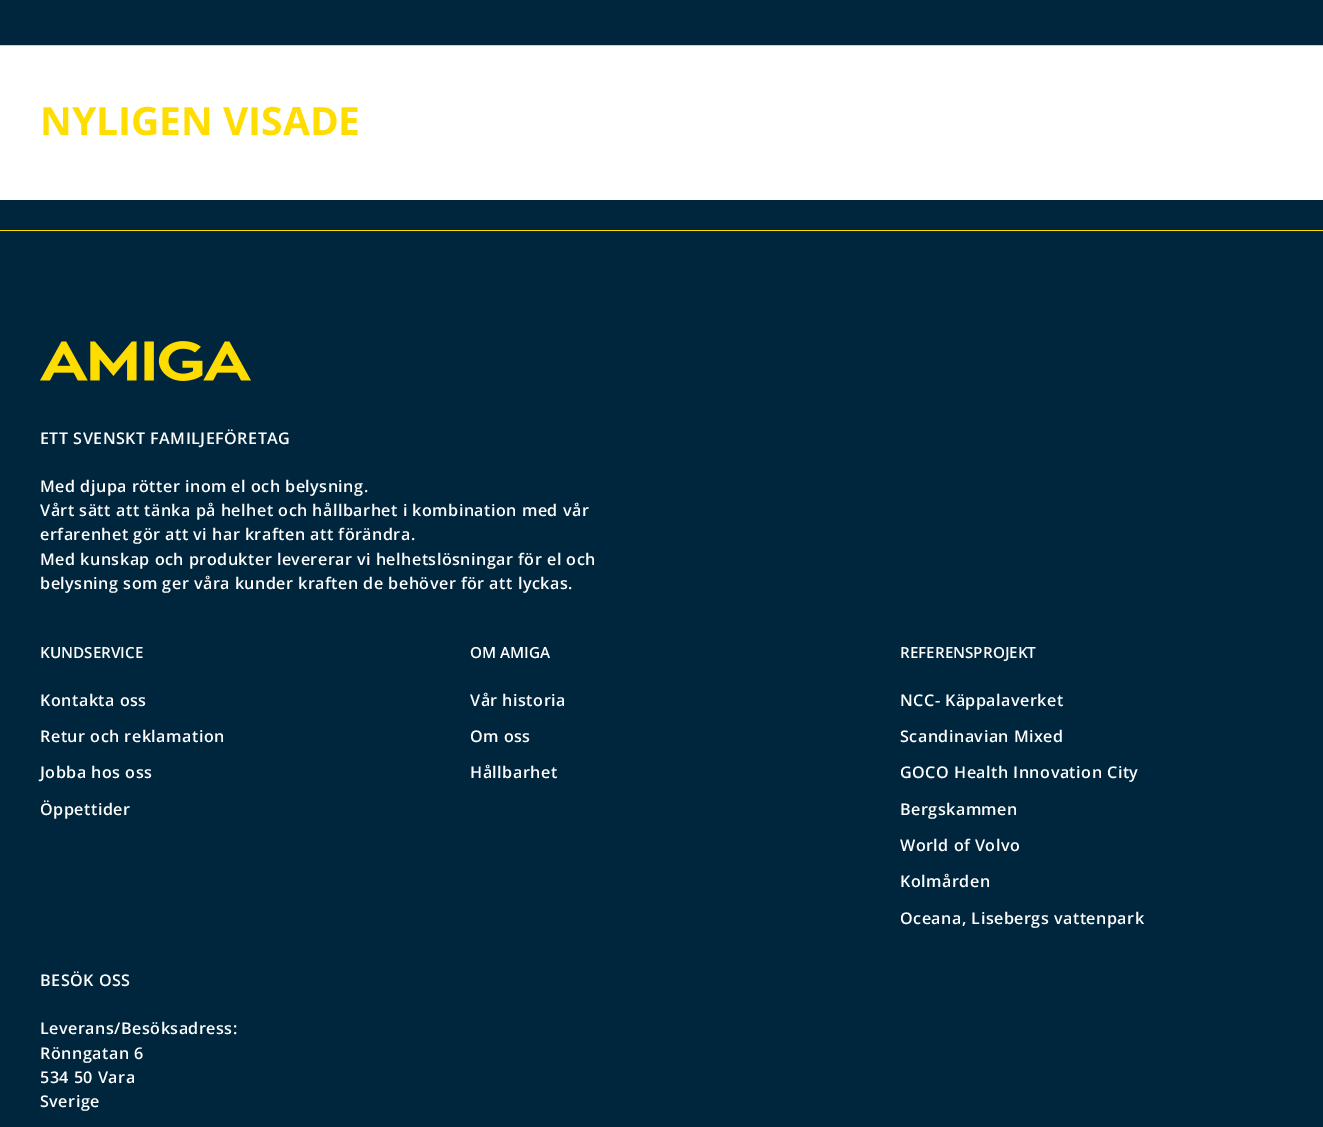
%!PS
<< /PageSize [1323 1127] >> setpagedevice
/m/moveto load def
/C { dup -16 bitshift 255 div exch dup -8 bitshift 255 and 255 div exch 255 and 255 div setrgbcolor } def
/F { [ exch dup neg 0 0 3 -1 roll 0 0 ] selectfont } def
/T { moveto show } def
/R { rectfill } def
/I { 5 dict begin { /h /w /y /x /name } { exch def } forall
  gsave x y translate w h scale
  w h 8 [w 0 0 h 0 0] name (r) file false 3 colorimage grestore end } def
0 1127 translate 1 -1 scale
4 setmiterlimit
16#00263E C
0 0 1323 1127 R
16#FFFFFF C
0 46 1323 154 R
16#FFDD00 C
0 45 1323 1 R
/OpenSans-Bold 39 F
(NYLIGEN VISADE) 40 135 T
0 230 1323 1 R
(1.rgb) 40 341 211 40 I
/OpenSans-SemiBold 16.15 F
16#FFFFFF C
40 444 m .47 0 (ETT SVENSKT FAMILJEFÖRETAG) ashow
40 492 m .47 0 (Med djupa rötter inom el och belysning.) ashow
40 516 m .47 0 (Vårt sätt att tänka på helhet och hållbarhet i kombination med vår) ashow
40 540 m .47 0 (erfarenhet gör att vi har kraften att förändra.) ashow
40 565 m .47 0 (Med kunskap och produkter levererar vi helhetslösningar för el och) ashow
40 589 m .47 0 (belysning som ger våra kunder kraften de behöver för att lyckas.) ashow
/OpenSans-SemiBold 15.25 F
(KUNDSERVICE) 40 658 T
/OpenSans-SemiBold 16.15 F
40 706 m .47 0 (Kontakta oss) ashow
40 742 m .47 0 (Retur och reklamation) ashow
40 778 m .47 0 (Jobba hos oss) ashow
40 815 m .47 0 (Öppettider) ashow
/OpenSans-SemiBold 15.25 F
(OM AMIGA) 470 658 T
/OpenSans-SemiBold 16.15 F
470 706 m .47 0 (Vår historia) ashow
470 742 m .47 0 (Om oss) ashow
470 778 m .47 0 (Hållbarhet) ashow
/OpenSans-SemiBold 15.25 F
(REFERENSPROJEKT) 900 658 T
/OpenSans-SemiBold 16.15 F
900 706 m .47 0 (NCC- Käppalaverket) ashow
900 742 m .47 0 (Scandinavian Mixed) ashow
900 778 m .47 0 (GOCO Health Innovation City) ashow
900 815 m .47 0 (Bergskammen) ashow
900 851 m .47 0 (World of Volvo) ashow
900 887 m .47 0 (Kolmården) ashow
900 924 m .47 0 (Oceana, Lisebergs vattenpark) ashow
40 986 m .47 0 (BESÖK OSS) ashow
40 1034 m .47 0 (Leverans/Besöksadress:) ashow
40 1059 m .47 0 (Rönngatan 6) ashow
40 1083 m .47 0 (534 50 Vara) ashow
40 1107 m .47 0 (Sverige) ashow
showpage
